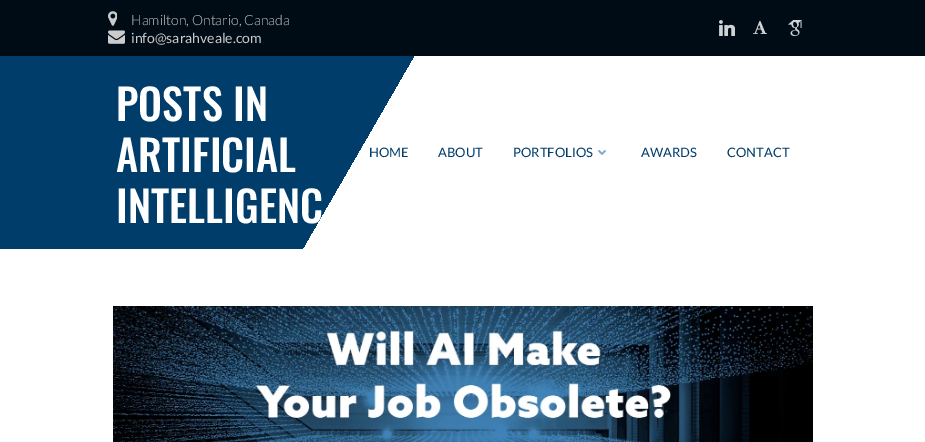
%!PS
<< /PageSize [925 442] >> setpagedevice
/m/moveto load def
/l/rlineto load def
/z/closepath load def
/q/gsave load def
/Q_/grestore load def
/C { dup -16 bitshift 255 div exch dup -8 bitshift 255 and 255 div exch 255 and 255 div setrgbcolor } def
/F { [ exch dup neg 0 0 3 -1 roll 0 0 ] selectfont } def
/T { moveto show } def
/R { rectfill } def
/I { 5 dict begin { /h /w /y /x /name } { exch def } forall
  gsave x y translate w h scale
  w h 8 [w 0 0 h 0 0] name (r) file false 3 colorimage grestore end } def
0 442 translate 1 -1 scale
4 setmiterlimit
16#FFFFFF C
0 0 925 442 R
16#000C15 C
0 0 925 56 R
(1.rgb) 108 11 9 15 I
/Lato-Light 14 F
16#CACACA C
(Hamilton, Ontario, Canada) 131 25 T
(2.rgb) 108 30 17 14 I
/Lato-Regular 14 F
(info@sarahveale.com) 131 43 T
(3.rgb) 719 20 16 16 I
(4.rgb) 753 21 14 13 I
(5.rgb) 788 20 14 16 I
q 0 56 m 414 0 l 0 193 l -414 0 l z clip newpath
<< /ShadingType 2 /ColorSpace /DeviceRGB /Coords [74 -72 851 377] /Extend [true true] /Function << /FunctionType 3 /Domain [0 1] /Functions [<< /FunctionType 2 /Domain [0 1] /C0 [0 .239 .416] /C1 [0 .239 .416] /N 1 >> << /FunctionType 2 /Domain [0 1] /C0 [1 1 1] /C1 [1 1 1] /N 1 >>] /Bounds [.4] /Encode [0 1 0 1] >> >> shfill Q_
/Oswald-Medium 42.5 F
16#FFFFFF C
(POSTS IN) 116 121 T
(ARTIFICIAL) 116 172 T
(INTELLIGENC) 116 223 T
/Lato-Regular 13 F
16#003D6A C
(HOME) 369 157 T
(ABOUT) 438 157 T
(PORTFOLIOS) 513 157 T
(6.rgb) 598 150 8 5 I
(AWARDS) 641 157 T
(CONTACT) 727 157 T
(7.rgb) 113 306 700 136 I
showpage
